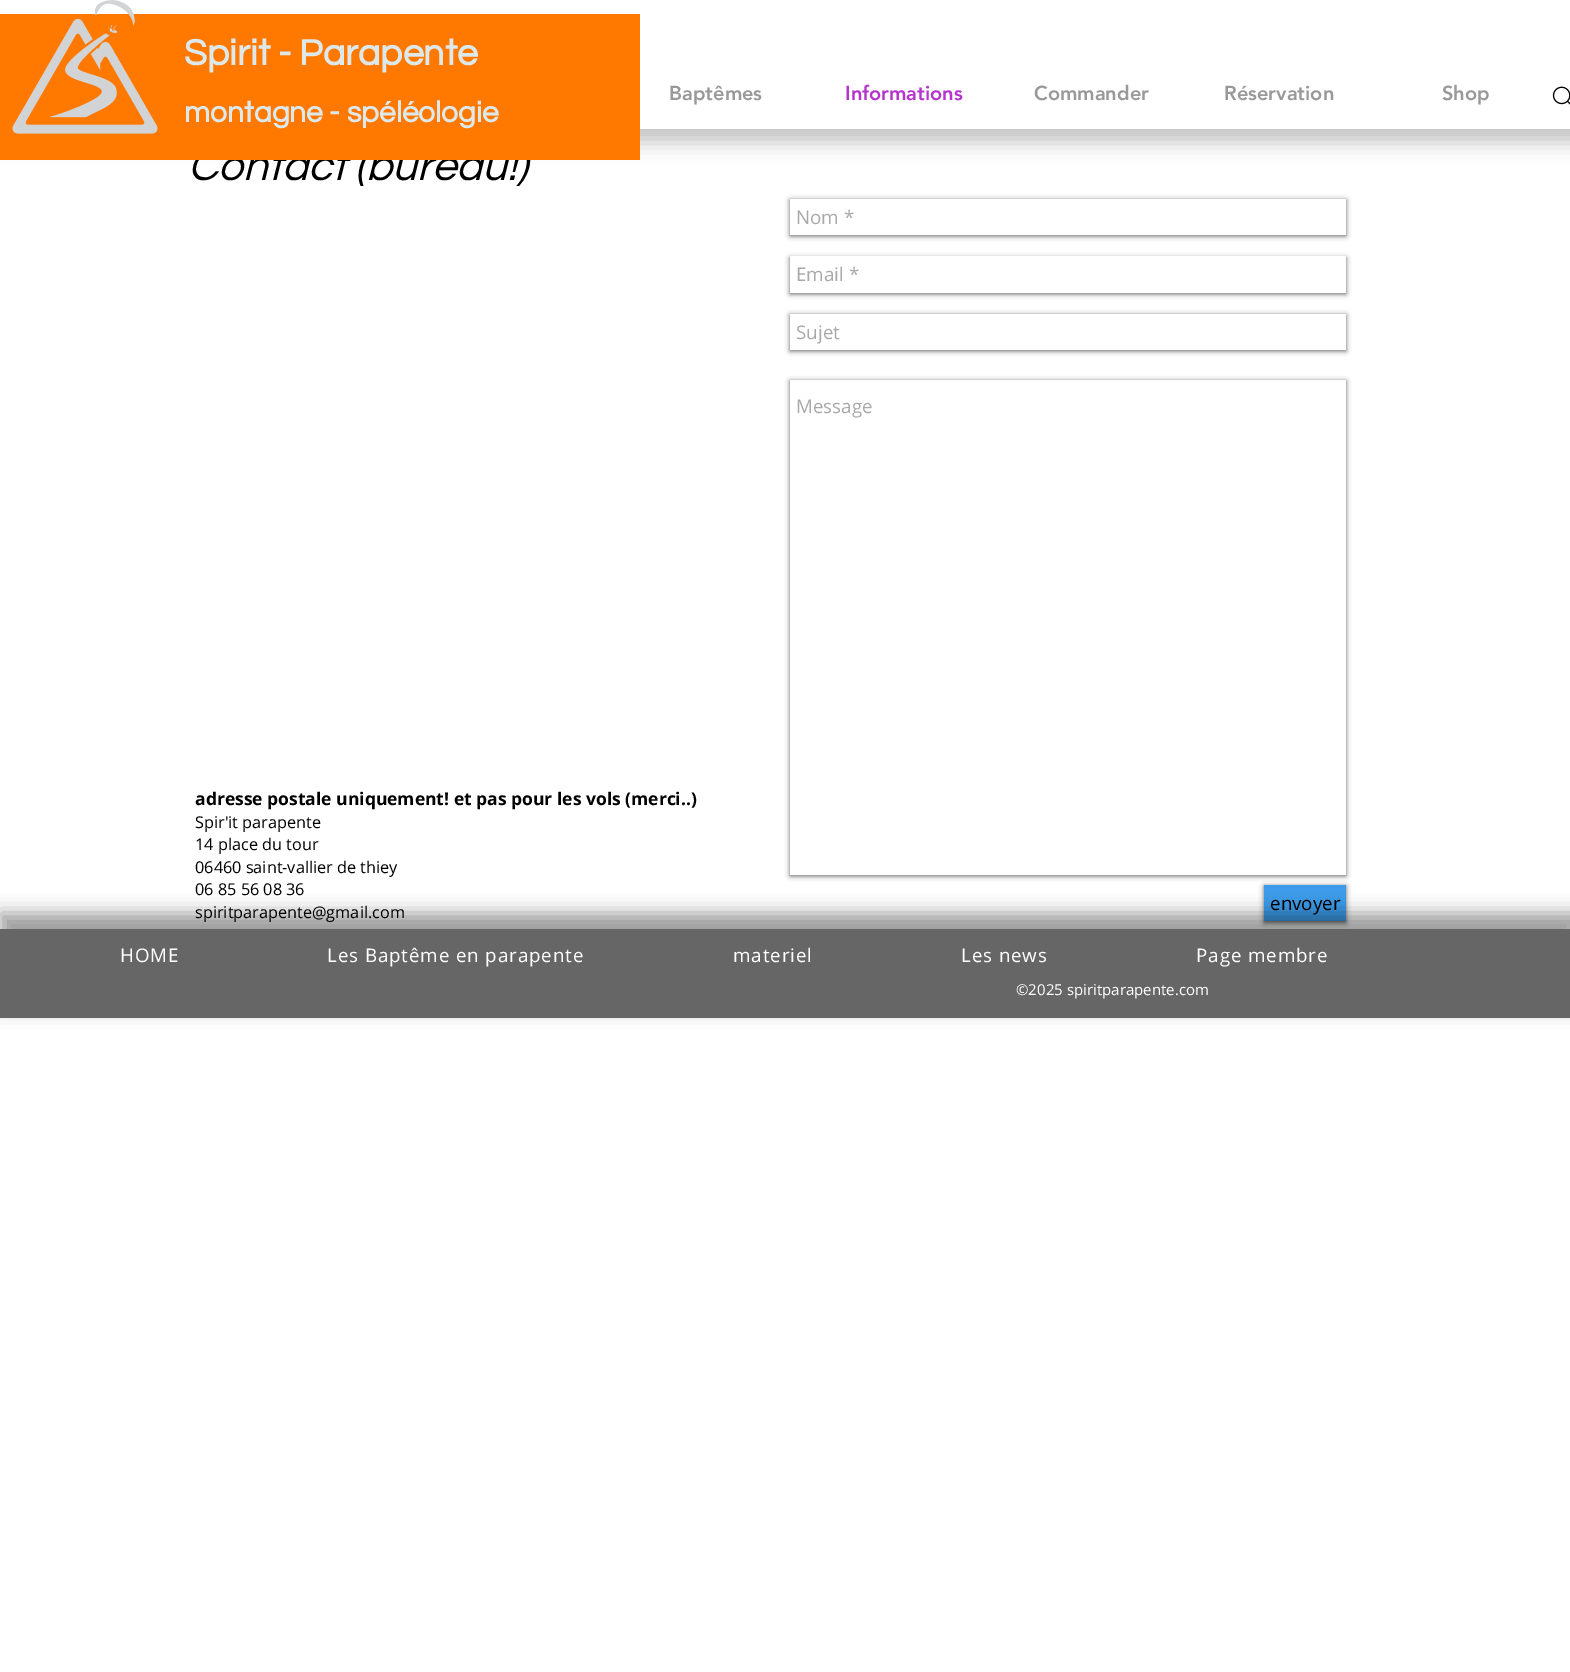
%!PS
<< /PageSize [1570 1672] /PageUsesTransparency true >> setpagedevice
/m/moveto load def
/l/rlineto load def
/z/closepath load def
/q/gsave load def
/Q_/grestore load def
/C { dup -16 bitshift 255 div exch dup -8 bitshift 255 and 255 div exch 255 and 255 div setrgbcolor } def
/F { [ exch dup neg 0 0 3 -1 roll 0 0 ] selectfont } def
/T { moveto show } def
/R { rectfill } def
/A { dup .setfillconstantalpha .setstrokeconstantalpha } def
/Q { 5 dict begin { /r /h /w /y /x } { exch def } forall
  x r add y moveto x w add y 2 copy h add r arct x w add y h add x 1 index r arct
  x y h add x y r arct x y 2 copy exch w add exch r arct closepath end } def
/S { 12 dict begin { /a /b /q /h /w /y /x } { exch def } forall gsave /was 0 def
  9 -2 -9 { dup b mul 4 div /e exch def 1 sub .425 mul 2.718 exch exp 1 add a .99 .min exch div /now exch def
    1 1 now sub 1 was sub div sub A /was now def
    w h .min e 2 mul add 0 gt { x e sub y e sub w e 2 mul add h e 2 mul add
      q e add b .6 mul add w h .min 2 div e add .min 0 .max Q fill } if } for grestore end } def
/I { 5 dict begin { /h /w /y /x /name } { exch def } forall
  gsave x y translate w h scale
  w h 8 [w 0 0 h 0 0] name (r) file false 3 colorimage grestore end } def
0 .pushpdf14devicefilter
0 1672 translate 1 -1 scale
4 setmiterlimit
16#FFFFFF C
0 0 1570 1672 R
16#000000 C
-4 -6 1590 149 0 9.5 .22 S
16#FFFFFF C
0 0 1570 129 R
/Questrial-Italic 43.75 F
16#000000 C
(Contact \(bureau!\)) 188 180 T
16#FF7900 C
0 14 640 146 R
(1.rgb) 12 0 146 134 I
/Questrial-Bold 37.5 F
16#DDE8EB C
(Spirit - Parapente) 184 65 T
/Questrial-Bold 30 F
(montagne - spéléologie) 184 122 T
/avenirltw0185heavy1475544-Black 20 F
16#999999 C
(Baptêmes) 669 100 T
16#B535CC C
(Informations) 845 100 T
16#999999 C
(Commander) 1034 100 T
(Réservation) 1224 100 T
(Shop) 1442 100 T
(2.rgb) 1552 86 18 19 I
/OpenSans-Bold 17.5 F
16#000000 C
(adresse postale uniquement! et pas pour les vols \(merci..\)) 195 805 T
/OpenSans-Regular 16.25 F
(Spir'it parapente) 195 828 T
(14 place du tour) 195 850 T
(06460 saint-vallier de thiey) 195 873 T
(06 85 56 08 36) 195 895 T
(spiritparapente@gmail.com) 195 918 T
q
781 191 m 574 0 l 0 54 l -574 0 l z 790 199 m 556 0 l 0 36 l -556 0 l z eoclip newpath
790 200 556 36 0 2.5 .6 S
Q_
/OpenSans-Regular 18.75 F
16#A9A9A9 C
(Nom *) 796 224 T
q
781 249 m 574 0 l 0 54 l -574 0 l z 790 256 m 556 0 l 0 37 l -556 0 l z eoclip newpath
16#000000 C
790 258 556 36 0 2.5 .6 S
Q_
0.18 A
16#FFFFFF C
790 292 556 1 R
1 A
16#A9A9A9 C
(Email *) 796 281 T
q
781 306 m 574 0 l 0 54 l -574 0 l z 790 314 m 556 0 l 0 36 l -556 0 l z eoclip newpath
16#000000 C
790 315 556 36 0 2.5 .6 S
Q_
(Sujet) 796 339 T
q
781 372 m 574 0 l 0 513 l -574 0 l z 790 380 m 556 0 l 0 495 l -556 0 l z eoclip newpath
16#000000 C
790 381 556 495 0 2.5 .6 S
Q_
(Message) 796 413 T
16#000000 C
1264 886 82 37 0 2.5 .6 S
16#3D9BE9 C
1264 885 82 36 R
16#000000 C
(envoyer) 1270 910 T
0 913 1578 96 0 9 .39 S
16#666666 C
0 929 1570 89 R
16#FFFFFF C
120 962 m .9 0 (HOME) ashow
327 962 m .9 0 (Les Baptême en parapente) ashow
733 962 m .9 0 (materiel) ashow
961 962 m .9 0 (Les news) ashow
1196 962 m .9 0 (Page membre) ashow
/OpenSans-Regular 15 F
(©2025 spiritparapente.com) 1016 995 T
.poppdf14devicefilter showpage
